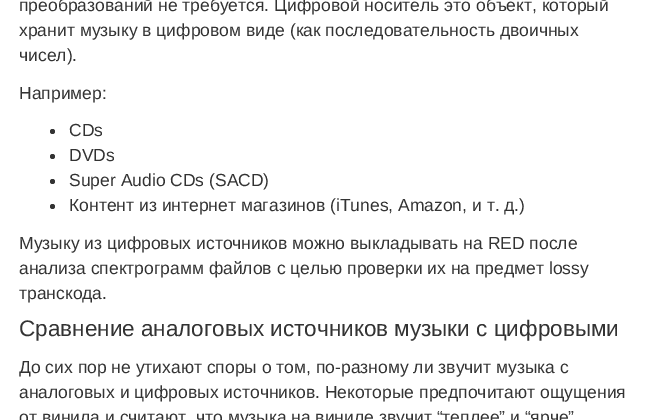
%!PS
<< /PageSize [654 420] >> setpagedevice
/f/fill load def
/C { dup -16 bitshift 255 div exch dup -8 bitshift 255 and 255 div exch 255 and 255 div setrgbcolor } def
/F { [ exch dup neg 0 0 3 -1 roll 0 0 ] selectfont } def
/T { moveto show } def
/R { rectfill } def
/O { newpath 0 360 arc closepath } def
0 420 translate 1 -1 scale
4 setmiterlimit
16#FFFFFF C
0 0 654 420 R
/LiberationSans-Regular 17.5 F
16#333333 C
(преобразований не требуется. Цифровой носитель это объект, который) 19 11 T
(хранит музыку в цифровом виде \(как последовательность двоичных) 19 36 T
(чисел\).) 19 61 T
(Например:) 19 99 T
52.5 131.5 2.5 O f
(CDs) 69 136 T
52.5 156.5 2.5 O f
(DVDs) 69 161 T
52.5 181.5 2.5 O f
(Super Audio CDs \(SACD\)) 69 186 T
52.5 206.5 2.5 O f
(Контент из интернет магазинов \(iTunes, Amazon, и т. д.\)) 69 211 T
(Музыку из цифровых источников можно выкладывать на RED после) 19 249 T
(анализа спектрограмм файлов с целью проверки их на предмет lossy) 19 274 T
(транскода.) 19 299 T
/LiberationSans-Regular 22.5 F
(Сравнение аналоговых источников музыки с цифровыми) 19 336 T
/LiberationSans-Regular 17.5 F
(До сих пор не утихают споры о том, по-разному ли звучит музыка с) 19 373 T
(аналоговых и цифровых источников. Некоторые предпочитают ощущения) 19 398 T
(от винила и считают, что музыка на виниле звучит “теплее” и “ярче”) 19 423 T
showpage
